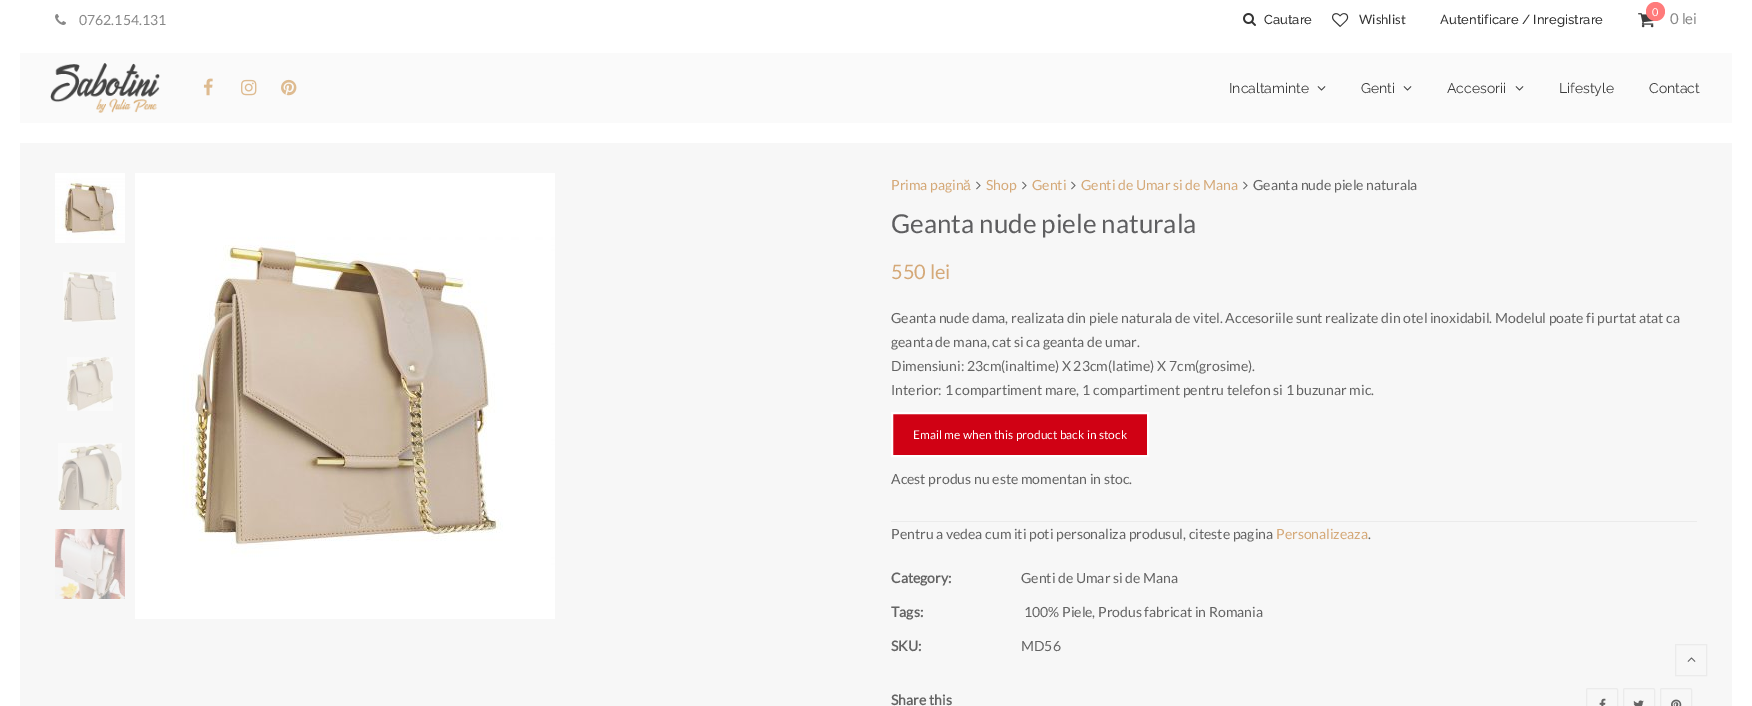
%!PS
<< /PageSize [1752 706] >> setpagedevice
/m/moveto load def
/l/rlineto load def
/z/closepath load def
/f/fill load def
/s/stroke load def
/q/gsave load def
/Q_/grestore load def
/w/setlinewidth load def
/C { dup -16 bitshift 255 div exch dup -8 bitshift 255 and 255 div exch 255 and 255 div setrgbcolor } def
/F { [ exch dup neg 0 0 3 -1 roll 0 0 ] selectfont } def
/T { moveto show } def
/R { rectfill } def
/O { newpath 0 360 arc closepath } def
/Q { 5 dict begin { /r /h /w /y /x } { exch def } forall
  x r add y moveto x w add y 2 copy h add r arct x w add y h add x 1 index r arct
  x y h add x y r arct x y 2 copy exch w add exch r arct closepath end } def
/I { 5 dict begin { /h /w /y /x /name } { exch def } forall
  gsave x y translate w h scale
  w h 8 [w 0 0 h 0 0] name (r) file false 3 colorimage grestore end } def
0 706 translate 1 -1 scale
4 setmiterlimit
16#FFFFFF C
0 0 1752 706 R
16#F7F7F7 C
20 143 1712 563 R
(1.rgb) 55 14 11 11 I
/Lato-Regular 14 F
16#888888 C
(0762.154.131) 79 25 T
(2.rgb) 1243 13 13 13 I
/Raleway-Medium 13 F
16#333333 C
(Cautare) 1264 24 T
(3.rgb) 1332 13 17 14 I
/Lato-Regular 13 F
(Wishlist) 1359 24 T
/Raleway-Medium 13 F
(Autentificare / Inregistrare) 1440 24 T
(4.rgb) 1638 13 17 15 I
16#FF7B7B C
1655.5 11.5 9.5 O f
/Lato-Regular 11 F
16#FFFFFF C
(0) 1652 16 T
/Lato-Regular 15 F
16#888888 C
(0 lei) 1670 24 T
16#FAFAFA C
20 53 1712 70 R
(5.rgb) 50 63 110 50 I
(6.rgb) 203 78 10 18 I
(7.rgb) 241 79 16 17 I
(8.rgb) 281 79 16 17 I
/Raleway-Regular 14 F
16#3D3D3D C
(Incaltaminte) 1229 93 T
(9.rgb) 1317 86 9 5 I
(Genti) 1361 93 T
(9.rgb) 1403 86 9 5 I
(Accesorii) 1447 93 T
(9.rgb) 1515 86 9 5 I
(Lifestyle) 1559 93 T
(Contact) 1649 93 T
(10.rgb) 55 173 70 70 I
(11.rgb) 63 272 53 50 I
(12.rgb) 67 357 46 54 I
(13.rgb) 58 443 64 67 I
(14.rgb) 55 529 70 70 I
(15.rgb) 135 173 420 446 I
/Lato-Regular 14 F
16#D5A978 C
(Prima pagin) 891 190 T
/LiberationSans-Regular 14 F
(ă) 963 190 T
(16.rgb) 976 181 5 9 I
/Lato-Regular 14 F
(Shop) 986 190 T
(16.rgb) 1022 181 5 9 I
(Genti) 1032 190 T
(16.rgb) 1071 181 5 9 I
(Genti de Umar si de Mana) 1081 190 T
(16.rgb) 1243 181 5 9 I
16#646464 C
(Geanta nude piele naturala) 1253 190 T
/Lato-Regular 26 F
16#5E5E60 C
(Geanta nude piele naturala) 891 233 T
/Lato-Regular 20 F
16#D5A978 C
(550 lei) 891 279 T
/Lato-Regular 14 F
16#646464 C
(Geanta nude dama, realizata din piele naturala de vitel. Accesoriile sunt realizate din otel inoxidabil. Modelul poate fi purtat atat ca) 891 323 T
(geanta de mana, cat si ca geanta de umar.) 891 347 T
(Dimensiuni: 23cm\(inaltime\) X 23cm\(latime\) X 7cm\(grosime\).) 891 371 T
(Interior: 1 compartiment mare, 1 compartiment pentru telefon si 1 buzunar mic.) 891 395 T
16#D00114 C
892 413 m 256 0 l 0 43 l -256 0 l z q f Q_
16#FFFFFF C
2 w
s
/Lato-Regular 12 F
(Email me when this product back in stock) 913 439 T
16#EBEBEB C
891 521 806 1 R
/Lato-Regular 14 F
16#646464 C
(Acest produs nu este momentan in stoc.) 891 484 T
(Pentru a vedea cum iti poti personaliza produsul, citeste pagina) 891 539 T
16#D5A978 C
(Personalizeaza) 1276 539 T
16#646464 C
(.) 1368 539 T
/Lato-Bold 14 F
(Category:) 891 583 T
/Lato-Regular 14 F
(Genti de Umar si de Mana) 1021 583 T
/Lato-Bold 14 F
(Tags:) 891 617 T
/Lato-Regular 14 F
(100% Piele, Produs fabricat in Romania) 1024 617 T
/Lato-Bold 14 F
(SKU:) 891 651 T
/Lato-Regular 14 F
(MD56) 1021 651 T
/Lato-Bold 14 F
(Share this) 891 705 T
16#EBEBEB C
1 w
1586.5 688.5 31 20 1.5 Q s
(17.rgb) 1599 698 7 8 I
1623.5 688.5 31 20 1.5 Q s
(18.rgb) 1633 700 11 6 I
1660.5 688.5 31 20 1.5 Q s
(19.rgb) 1671 699 11 7 I
1675.5 644.5 31 31 rectstroke
(20.rgb) 1687 657 9 5 I
showpage
